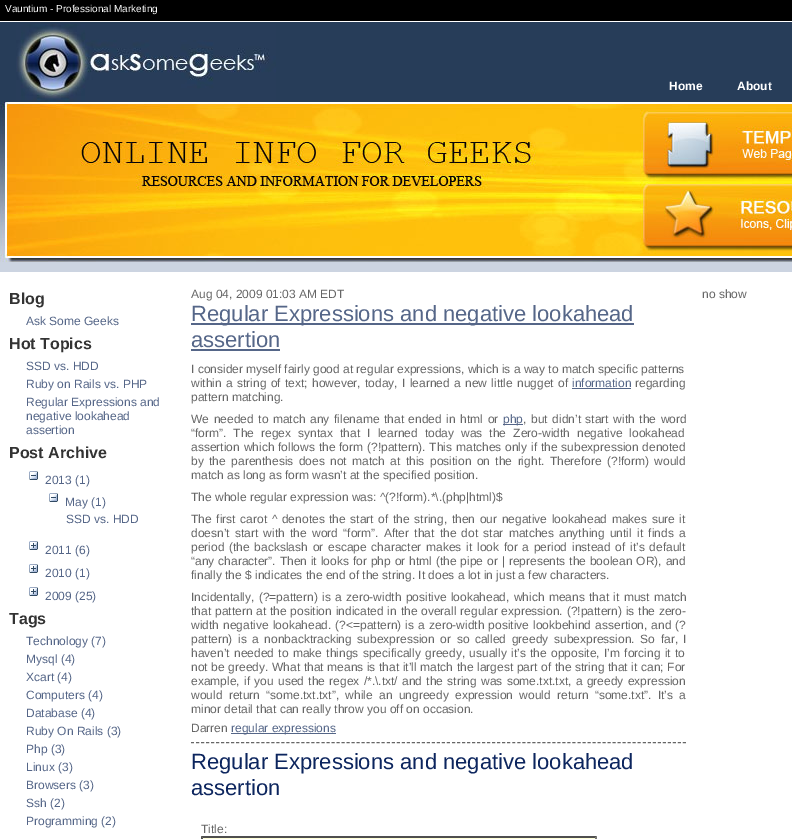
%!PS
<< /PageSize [792 839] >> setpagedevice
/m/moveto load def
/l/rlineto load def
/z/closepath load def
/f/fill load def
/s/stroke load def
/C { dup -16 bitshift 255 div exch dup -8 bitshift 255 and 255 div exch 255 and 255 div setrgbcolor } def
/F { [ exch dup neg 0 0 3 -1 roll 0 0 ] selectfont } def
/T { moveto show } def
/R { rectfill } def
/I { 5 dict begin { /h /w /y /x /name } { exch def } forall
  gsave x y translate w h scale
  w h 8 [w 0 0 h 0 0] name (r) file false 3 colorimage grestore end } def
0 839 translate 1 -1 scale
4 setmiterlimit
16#CCD4E1 C
0 0 792 839 R
16#000000 C
0 0 792 21 R
16#FFFFFF C
0 21 792 1 R
/LiberationSans-Regular 10 F
(Vauntium - Professional Marketing) 5 12 T
16#273D59 C
0 22 792 80 R
(1.rgb) 16 24 260 78 I
/LiberationSans-Bold 12 F
16#FFFFFF C
(Home) 669 90 T
(About) 737 90 T
(2.rgb) 0 102 792 160 I
0 272 792 567 R
/LiberationSans-Bold 16 F
16#333333 C
(Blog) 9 304 T
/LiberationSans-Regular 12 F
16#556688 C
(Ask Some Geeks) 26 325 T
/LiberationSans-Bold 16 F
16#333333 C
(Hot Topics) 9 349 T
/LiberationSans-Regular 12 F
16#556688 C
(SSD vs. HDD) 26 370 T
(Ruby on Rails vs. PHP) 26 388 T
(Regular Expressions and) 26 406 T
(negative lookahead) 26 420 T
(assertion) 26 434 T
/LiberationSans-Bold 16 F
16#333333 C
(Post Archive) 9 458 T
(3.rgb) 29 471 9 9 I
/LiberationSans-Regular 12 F
16#556688 C
(2013 \(1\)) 45 484 T
(3.rgb) 49 493 9 9 I
(May \(1\)) 65 506 T
(SSD vs. HDD) 66 523 T
(4.rgb) 29 541 9 9 I
(2011 \(6\)) 45 554 T
(4.rgb) 29 564 9 9 I
(2010 \(1\)) 45 577 T
(4.rgb) 29 587 9 9 I
(2009 \(25\)) 45 600 T
/LiberationSans-Bold 16 F
16#333333 C
(Tags) 9 624 T
/LiberationSans-Regular 12 F
16#556688 C
(Technology \(7\)) 26 645 T
(Mysql \(4\)) 26 663 T
(Xcart \(4\)) 26 681 T
(Computers \(4\)) 26 699 T
(Database \(4\)) 26 717 T
(Ruby On Rails \(3\)) 26 735 T
(Php \(3\)) 26 753 T
(Linux \(3\)) 26 771 T
(Browsers \(3\)) 26 789 T
(Ssh \(2\)) 26 807 T
(Programming \(2\)) 26 825 T
16#666666 C
(Aug 04, 2009 01:03 AM EDT) 191 298 T
16#556688 C
191 323 443 2 R
/LiberationSans-Regular 22 F
(Regular Expressions and negative lookahead) 191 321 T
(assertion) 191 347 T
191 349 89 2 R
/LiberationSans-Regular 12 F
16#666666 C
(I consider myself fairly good at regular expressions, which is a way to match specific patterns) 191 373 T
191 387 m 1 0 32 (within a string of text; however, today, I learned a new little nugget of) widthshow
16#556688 C
(information) 572 387 T
572 388 59 1 R
16#666666 C
(regarding) 635 387 T
(pattern matching.) 191 401 T
191 423 m 1.25 0 32 (We needed to match any filename that ended in html or) widthshow
16#556688 C
503 424 20 1 R
(php) 503 423 T
16#666666 C
523 423 m 1.25 0 32 (, but didn’t start with the word) widthshow
191 437 m 3.75 0 32 (“form”. The regex syntax that I learned today was the Zero-width negative lookahead) widthshow
191 451 m .5 0 32 (assertion which follows the form \(?!pattern\). This matches only if the subexpression denoted) widthshow
191 465 m 2.1 0 32 (by the parenthesis does not match at this position on the right. Therefore \(?!form\) would) widthshow
(match as long as form wasn’t at the specified position.) 191 479 T
(The whole regular expression was: ^\(?!form\).*\\.\(php|html\)$) 191 501 T
191 523 m 1.3 0 32 (The first carot ^ denotes the start of the string, then our negative lookahead makes sure it) widthshow
191 537 m 1.9 0 32 (doesn’t start with the word “form”. After that the dot star matches anything until it finds a) widthshow
191 551 m 1.4 0 32 (period \(the backslash or escape character makes it look for a period instead of it’s default) widthshow
191 565 m .6 0 32 (“any character”. Then it looks for php or html \(the pipe or | represents the boolean OR\), and) widthshow
(finally the $ indicates the end of the string. It does a lot in just a few characters.) 191 579 T
191 601 m 1 0 32 (Incidentally, \(?=pattern\) is a zero-width positive lookahead, which means that it must match) widthshow
191 615 m .5 0 32 (that pattern at the position indicated in the overall regular expression. \(?!pattern\) is the zero-) widthshow
191 629 m .75 0 32 (width negative lookahead. \(?<=pattern\) is a zero-width positive lookbehind assertion, and \(?) widthshow
191 643 m 2.25 0 32 (pattern\) is a nonbacktracking subexpression or so called greedy subexpression. So far, I) widthshow
191 657 m 1 0 32 (haven’t needed to make things specifically greedy, usually it’s the opposite, I’m forcing it to) widthshow
191 671 m .3 0 32 (not be greedy. What that means is that it’ll match the largest part of the string that it can; For) widthshow
191 685 m 1 0 32 (example, if you used the regex /*.\\.txt/ and the string was some.txt.txt, a greedy expression) widthshow
191 699 m 3 0 32 (would return “some.txt.txt”, while an ungreedy expression would return “some.txt”. It’s a) widthshow
(minor detail that can really throw you off on occasion.) 191 713 T
(Darren) 191 732 T
16#556688 C
231 733 105 1 R
(regular expressions) 231 732 T
16#666666 C
[3 2.02] 0 setdash
191 742.5 m 495 0 l s
/LiberationSans-Regular 22 F
16#0C255E C
(Regular Expressions and negative lookahead) 191 769 T
(assertion) 191 795 T
/LiberationSans-Regular 12 F
16#666666 C
(Title:) 201 833 T
16#FFFFD9 C
201 836 396 3 R
16#4F4F4F C
201 836 m 396 0 l -2 2 l -392 0 l z f
16#767676 C
597 836 m 0 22 l -2 -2 l 0 -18 l z f
16#4F4F4F C
201 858 m 0 -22 l 2 2 l 0 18 l z f
16#666666 C
(no show) 702 298 T
showpage
